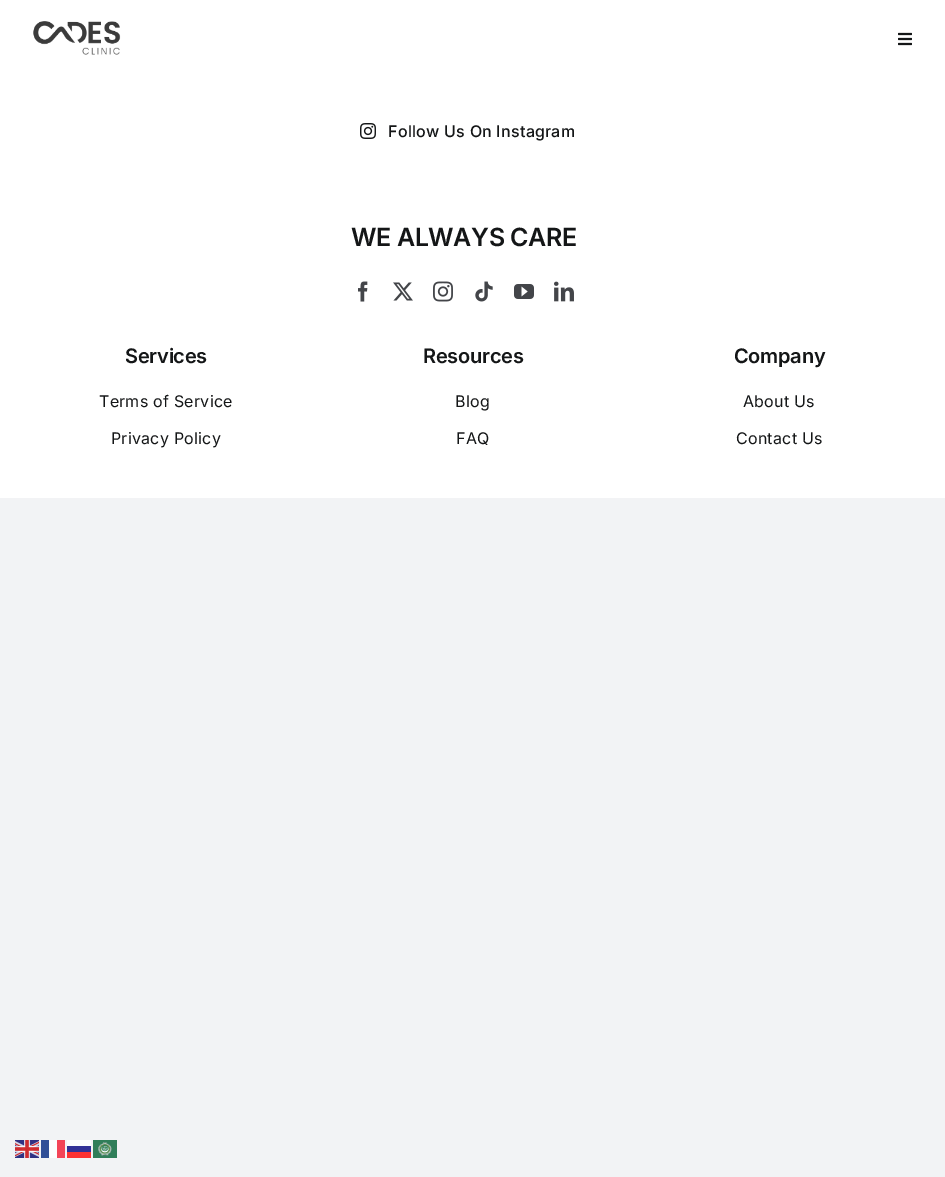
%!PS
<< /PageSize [945 1177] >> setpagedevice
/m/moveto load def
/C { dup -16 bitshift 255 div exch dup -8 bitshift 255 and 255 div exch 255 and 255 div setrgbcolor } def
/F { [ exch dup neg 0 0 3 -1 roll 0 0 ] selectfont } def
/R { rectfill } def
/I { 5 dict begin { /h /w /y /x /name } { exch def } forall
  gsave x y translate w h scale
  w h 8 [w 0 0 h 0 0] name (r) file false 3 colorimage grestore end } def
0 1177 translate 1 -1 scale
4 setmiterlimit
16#F2F3F5 C
0 0 945 1177 R
16#FFFFFF C
0 0 945 498 R
(1.rgb) 33 21 88 34 I
(2.rgb) 898 32 14 14 I
(3.rgb) 360 123 16 16 I
/Inter-Medium 16 F
16#141617 C
388 137 m .25 0 (Follow Us On Instagram) ashow
/Inter-SemiBold 25 F
351 246 m -.4 0 (WE ALWAYS CARE) ashow
(4.rgb) 358 281 10 21 I
(5.rgb) 393 282 20 19 I
(6.rgb) 433 281 20 21 I
(7.rgb) 475 281 18 21 I
(8.rgb) 514 284 20 15 I
(9.rgb) 554 281 20 21 I
/Inter-SemiBold 20 F
125 363 m -.25 0 (Services) ashow
/Inter-Regular 16 F
99 407 m .25 0 (Terms of Service) ashow
111 444 m .25 0 (Privacy Policy) ashow
/Inter-SemiBold 20 F
423 363 m -.25 0 (Resources) ashow
/Inter-Regular 16 F
455 407 m .25 0 (Blog) ashow
456 444 m .25 0 (FAQ) ashow
/Inter-SemiBold 20 F
734 363 m -.25 0 (Company) ashow
/Inter-Regular 16 F
743 407 m .25 0 (About Us) ashow
736 444 m .25 0 (Contact Us) ashow
(10.rgb) 15 1140 24 18 I
16#304F97 C
41 1140 8 18 R
16#FCFDFD C
49 1140 8 18 R
16#F34457 C
57 1140 8 18 R
16#FCFDFD C
67 1140 24 6 R
(11.rgb) 93 1140 24 18 I
16#313196 C
67 1146 24 6 R
16#FC3132 C
67 1152 24 6 R
showpage
